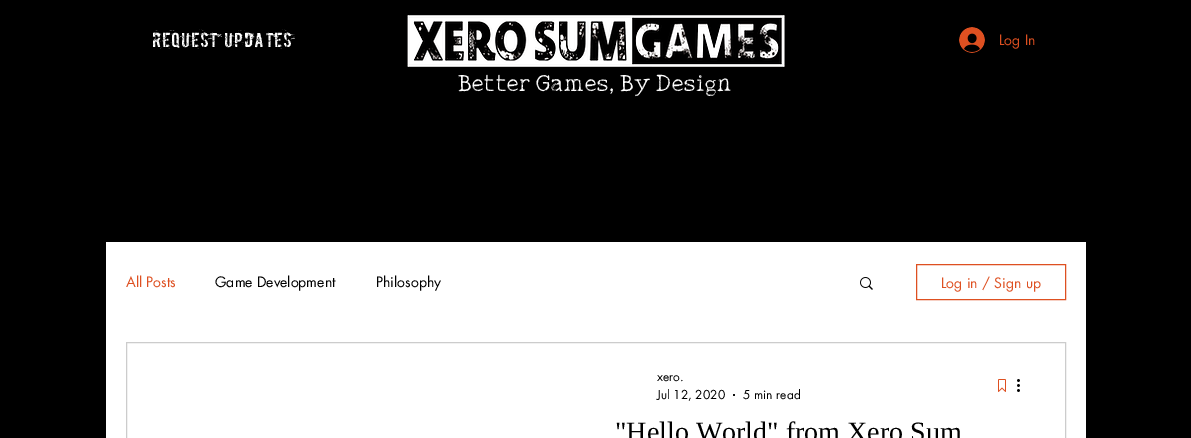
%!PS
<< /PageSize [1191 438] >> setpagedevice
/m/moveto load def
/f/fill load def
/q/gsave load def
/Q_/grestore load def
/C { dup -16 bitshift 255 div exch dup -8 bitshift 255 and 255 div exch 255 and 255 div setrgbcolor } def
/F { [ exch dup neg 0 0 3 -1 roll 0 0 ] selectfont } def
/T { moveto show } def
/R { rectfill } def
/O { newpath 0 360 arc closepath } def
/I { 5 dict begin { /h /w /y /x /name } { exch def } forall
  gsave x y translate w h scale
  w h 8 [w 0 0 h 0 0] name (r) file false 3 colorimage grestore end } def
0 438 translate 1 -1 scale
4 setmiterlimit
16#000000 C
0 0 1191 438 R
q
152 27 143 26 rectclip
/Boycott-Regular 17 F
16#FFFFFF C
152 47 m .8 0 (request updates) ashow
Q_
(1.rgb) 407 15 378 52 I
(2.rgb) 959 27 26 26 I
/futura-Regular 14 F
16#DE5021 C
(Log In) 999 45 T
/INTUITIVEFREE-Regular 24 F
16#FFFFFF C
(Better Games, By Design) 458 91 T
106 242 980 196 R
/futura-Regular 14 F
16#DE5021 C
(All Posts) 126 287 T
16#000000 C
(Game Development) 215 287 T
(Philosophy) 376 287 T
(3.rgb) 860 277 13 13 I
16#DE5021 C
916.5 264.5 149 35 rectstroke
(Log in / Sign up) 941 288 T
16#CCCCCC C
126.5 342.5 939 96 rectstroke
/futura-Regular 12 F
16#000000 C
(xero.) 657 381 T
(Jul 12, 2020) 657 399 T
734 395 1 O f
(5 min read) 743 399 T
(4.rgb) 998 379 8 13 I
(5.rgb) 1017 379 3 13 I
/LiberationSerif-Regular 28 F
("Hello World" from Xero Sum) 615 441 T
showpage
